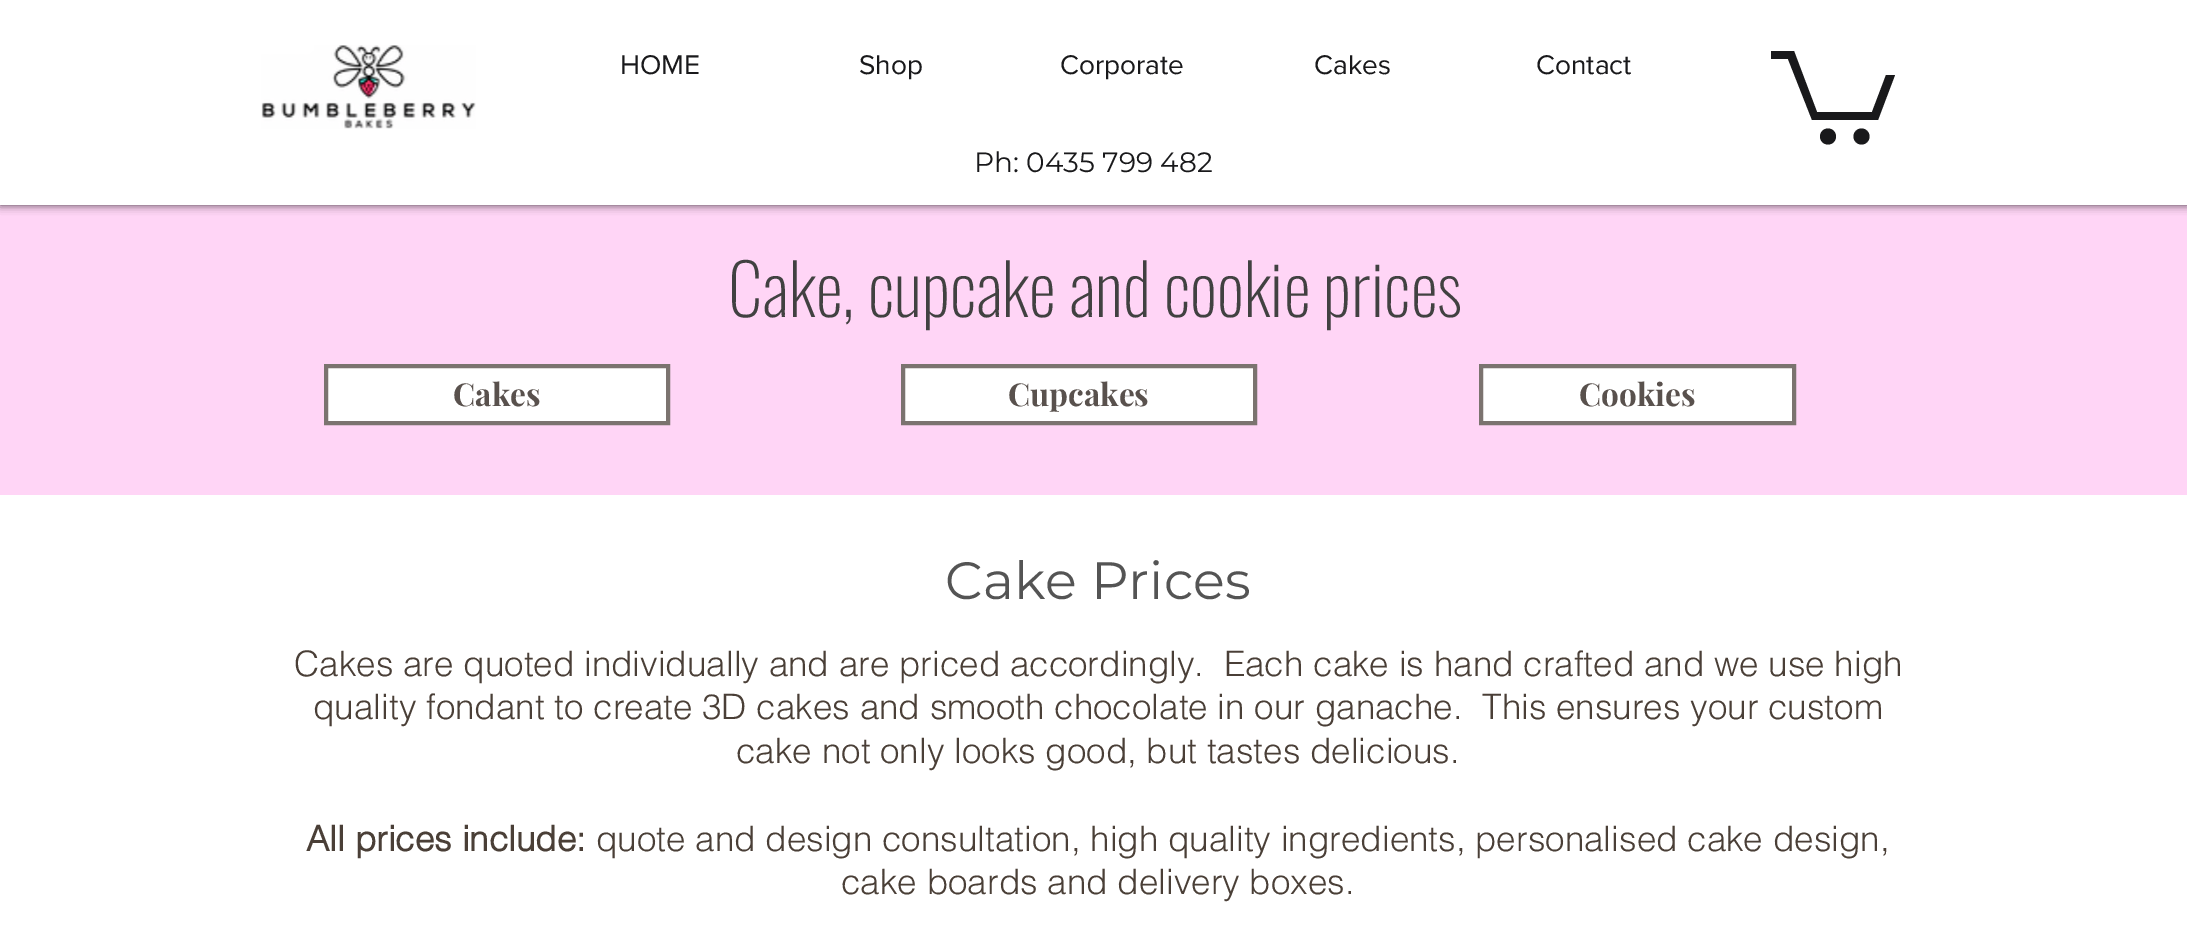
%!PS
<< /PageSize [2187 933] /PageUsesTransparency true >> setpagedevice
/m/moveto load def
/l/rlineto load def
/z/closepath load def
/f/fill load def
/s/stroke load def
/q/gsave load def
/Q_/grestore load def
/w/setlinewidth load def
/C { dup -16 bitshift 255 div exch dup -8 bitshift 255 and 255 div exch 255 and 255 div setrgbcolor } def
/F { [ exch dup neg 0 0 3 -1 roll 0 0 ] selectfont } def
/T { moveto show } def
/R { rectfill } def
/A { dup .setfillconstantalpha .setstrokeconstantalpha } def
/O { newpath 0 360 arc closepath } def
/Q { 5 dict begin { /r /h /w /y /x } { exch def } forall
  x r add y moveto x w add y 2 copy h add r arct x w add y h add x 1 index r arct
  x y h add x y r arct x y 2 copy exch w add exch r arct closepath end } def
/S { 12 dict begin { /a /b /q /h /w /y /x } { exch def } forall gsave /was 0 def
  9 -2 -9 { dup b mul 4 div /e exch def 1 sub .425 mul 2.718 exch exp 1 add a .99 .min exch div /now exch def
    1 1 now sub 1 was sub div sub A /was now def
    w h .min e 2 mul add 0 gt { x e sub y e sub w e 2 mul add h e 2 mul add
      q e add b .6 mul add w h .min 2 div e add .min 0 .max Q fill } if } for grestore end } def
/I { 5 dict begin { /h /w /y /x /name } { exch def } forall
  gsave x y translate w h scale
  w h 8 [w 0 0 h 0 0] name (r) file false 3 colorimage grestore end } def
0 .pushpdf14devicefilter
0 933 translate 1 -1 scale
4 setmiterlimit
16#FFFFFF C
0 0 2187 933 R
16#FFD5F6 C
0 205 2187 290 R
16#000000 C
0 0 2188 205 0 4.5 .7 S
16#FFFFFF C
0 0 2187 205 R
(1.rgb) 261 45 215 84 I
/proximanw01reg-Regular 28 F
16#19191B C
(HOME) 620 74 T
(Shop) 859 74 T
(Corporate) 1060 74 T
(Cakes) 1314 74 T
(Contact) 1536 74 T
1895 75 m -17 45 l -66 0 l -24 -61 l -17 0 l 0 -8 l 23 0 l 23 61 l 55 0 l 14 -37 l f
1861.5 136.5 8 O f
1828 136.5 8 O f
/Montserrat-Regular 28 F
(Ph: 0435 799 482) 974 172 T
/Oswald-ExtraLight 70 F
16#414141 C
(Cake, cupcake and cookie prices) 728 317 T
16#FFFFFF C
326 366 m 342 0 l 0 57 l -342 0 l z q f Q_
16#7B736F C
4 w
s
/PlayfairDisplay-Bold 31.5 F
16#59514D C
(Cakes) 453 406 T
16#FFFFFF C
903 366 m 352 0 l 0 57 l -352 0 l z q f Q_
16#7B736F C
s
16#59514D C
(Cupcakes) 1008 406 T
16#FFFFFF C
1481 366 m 313 0 l 0 57 l -313 0 l z q f Q_
16#7B736F C
s
16#59514D C
(Cookies) 1579 406 T
/Montserrat-Regular 52.5 F
16#545454 C
(Cake Prices) 945 599 T
/helvetica-Light 35 F
16#4A3F37 C
(Cakes are quoted individually and are priced accordingly.  Each cake is hand crafted and we use high) 294 676 T
(quality fondant to create 3D cakes and smooth chocolate in our ganache.  This ensures your custom) 313 719 T
(cake not only looks good, but tastes delicious.) 736 763 T
/helvetica-Bold 35 F
(All prices include:) 306 851 T
/helvetica-Light 35 F
(quote and design consultation, high quality ingredients, personalised cake design,) 596 851 T
(cake boards and delivery boxes.) 841 894 T
.poppdf14devicefilter showpage
